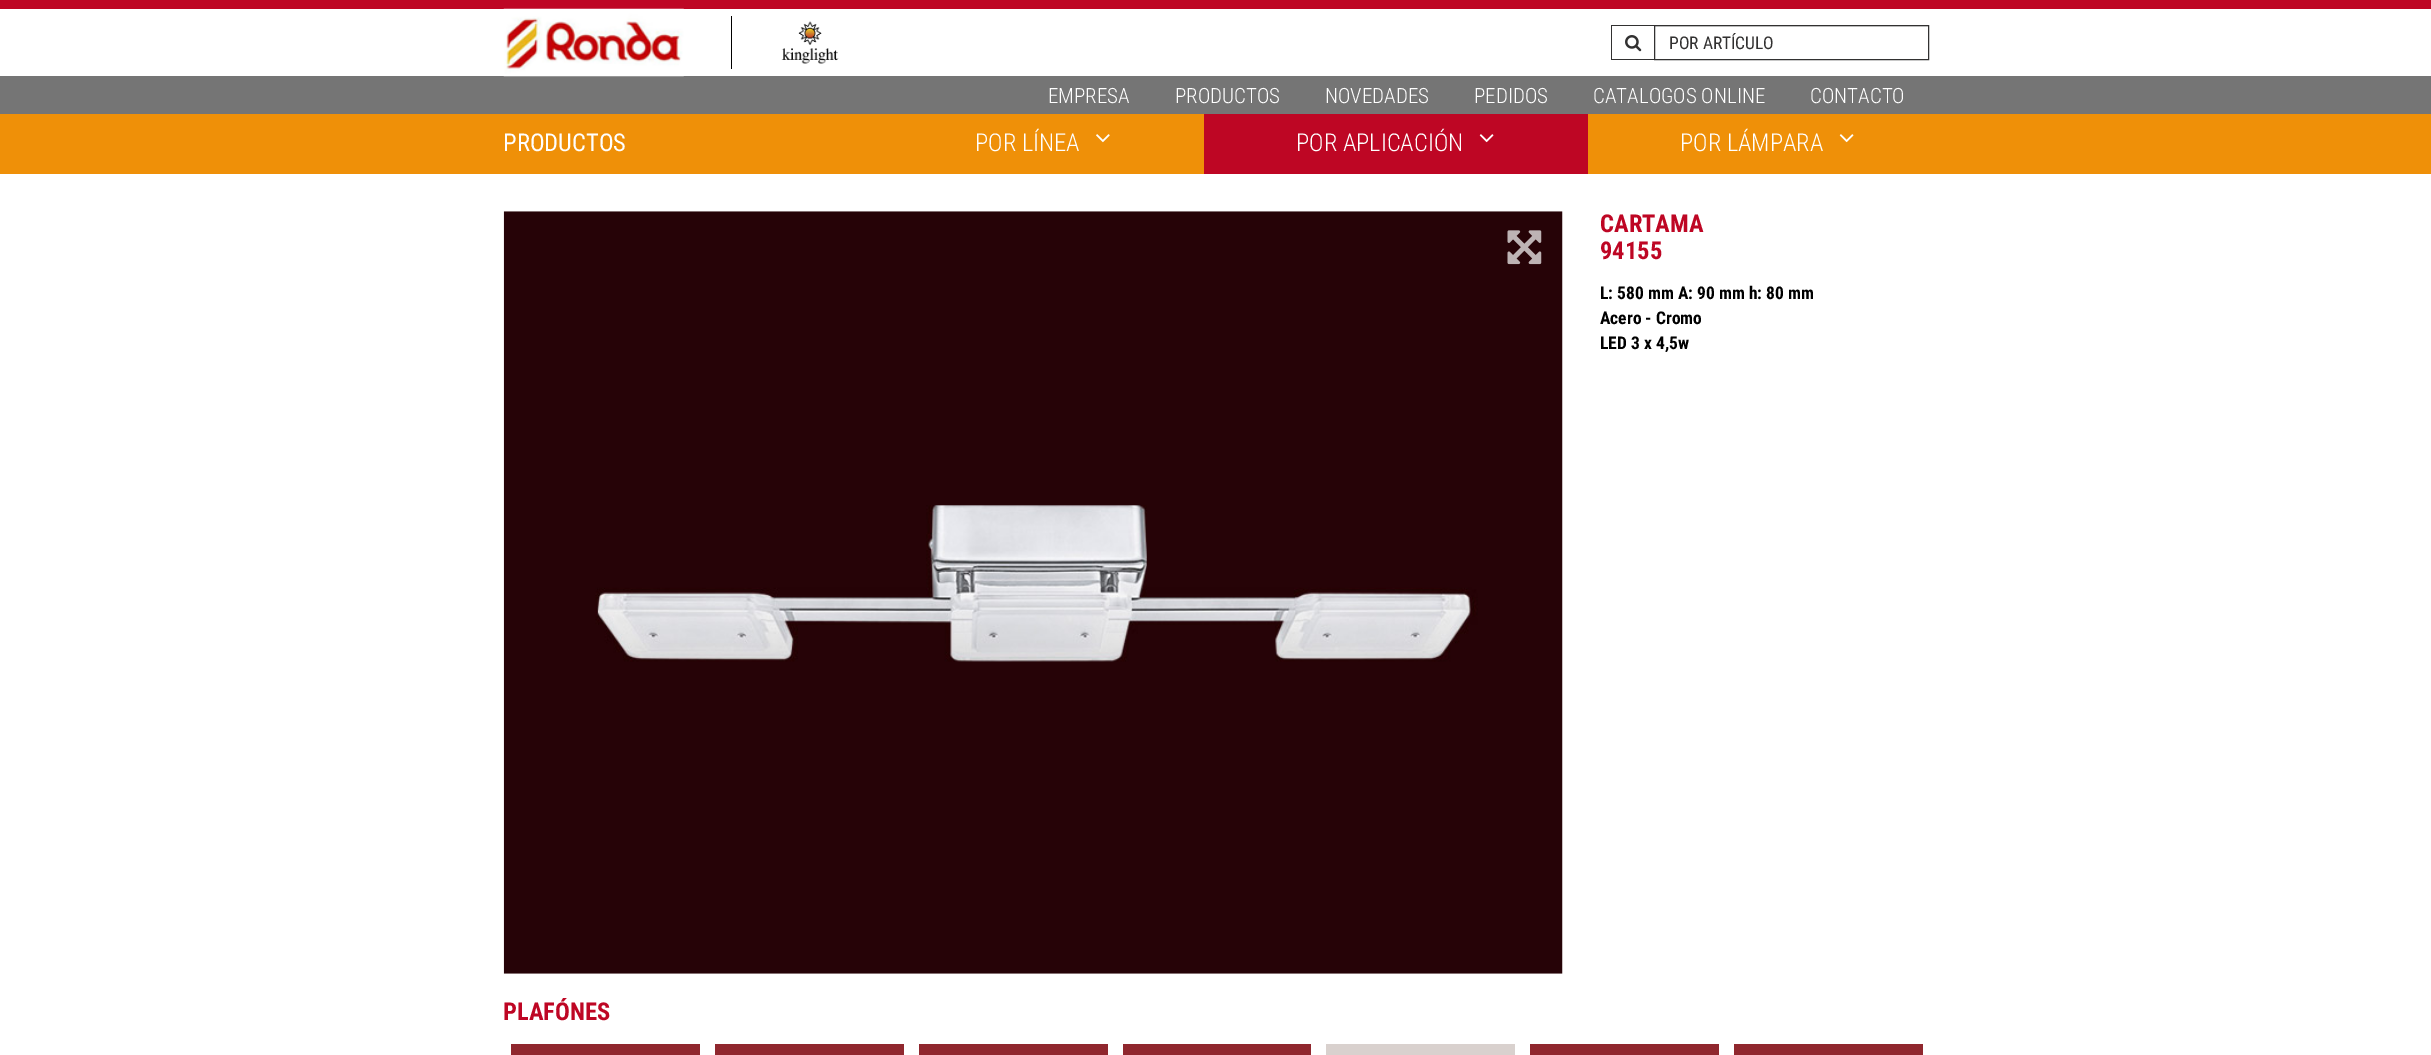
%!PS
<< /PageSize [2431 1055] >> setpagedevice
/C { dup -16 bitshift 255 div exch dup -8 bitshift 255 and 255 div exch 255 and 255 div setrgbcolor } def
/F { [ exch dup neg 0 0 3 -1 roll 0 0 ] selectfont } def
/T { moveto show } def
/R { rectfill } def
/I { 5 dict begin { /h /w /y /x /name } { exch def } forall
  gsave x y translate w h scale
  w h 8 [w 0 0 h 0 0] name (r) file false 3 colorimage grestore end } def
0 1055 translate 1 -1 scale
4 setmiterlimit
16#FFFFFF C
0 0 2431 1055 R
16#BE0624 C
0 0 2431 9 R
16#757575 C
0 76 2431 38 R
(1.rgb) 503 8 181 69 I
16#000000 C
731 16 1 53 R
(2.rgb) 781 21 58 43 I
16#323131 C
1611 25 43 1 R
1611 59 43 1 R
1611 25 1 35 R
(3.rgb) 1625 35 17 17 I
16#ECECEC C
1655 26 273 1 R
16#323131 C
1654.5 25.5 274 34 rectstroke
/RobotoCondensed-Regular 17.5 F
(POR ARTÍCULO) 1669 49 T
/RobotoCondensed-Light 21 F
16#FFFFFF C
(EMPRESA) 1048 103 T
(PRODUCTOS) 1175 103 T
(NOVEDADES) 1325 103 T
(PEDIDOS) 1474 103 T
(CATALOGOS ONLINE) 1593 103 T
(CONTACTO) 1810 103 T
16#EF9008 C
0 114 2431 60 R
/RobotoCondensed-Regular 24.5 F
16#FFFFFF C
(PRODUCTOS) 503 151 T
/RobotoCondensed-Light 24.5 F
(POR LÍNEA) 975 151 T
(4.rgb) 1096 134 14 9 I
16#BE0624 C
1204 114 384 60 R
16#FFFFFF C
(POR APLICACIÓN) 1296 151 T
(5.rgb) 1479 134 15 9 I
(POR LÁMPARA) 1680 151 T
(6.rgb) 1839 134 15 9 I
(7.rgb) 503 211 1060 763 I
(8.rgb) 1507 230 35 35 I
/RobotoCondensed-Bold 24.5 F
16#BE0624 C
(CARTAMA) 1600 232 T
(94155) 1600 259 T
/RobotoCondensed-Bold 17.5 F
16#000000 C
(L: 580 mm A: 90 mm h: 80 mm) 1600 299 T
(Acero - Cromo) 1600 324 T
(LED 3 x 4,5w) 1600 349 T
/RobotoCondensed-Bold 24.5 F
16#BE0624 C
(PLAFÓNES) 503 1020 T
16#90272E C
511 1044 189 11 R
715 1044 189 11 R
919 1044 189 11 R
1123 1044 188 11 R
16#D9D1CE C
1326 1044 189 11 R
16#90272E C
1530 1044 189 11 R
1734 1044 189 11 R
showpage
